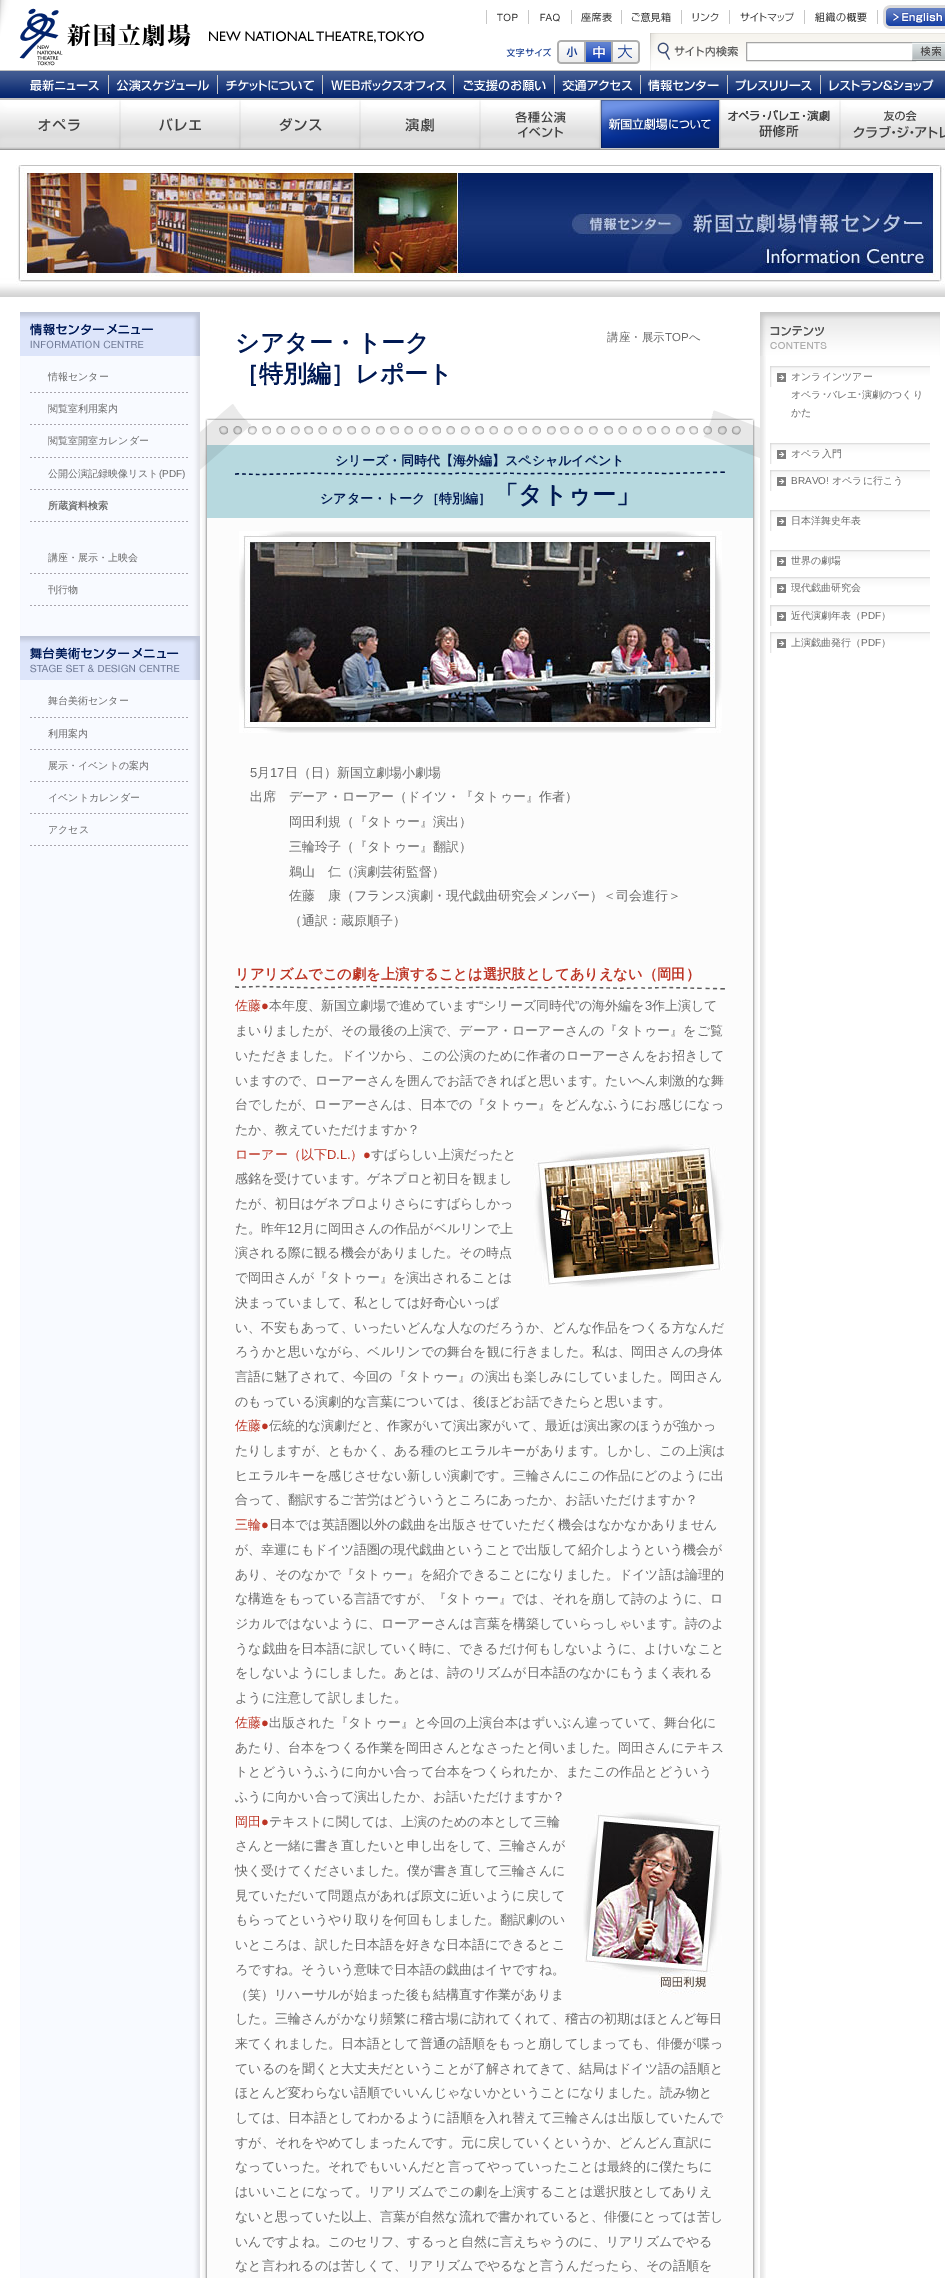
%!PS
<< /PageSize [945 2278] >> setpagedevice
/C { dup -16 bitshift 255 div exch dup -8 bitshift 255 and 255 div exch 255 and 255 div setrgbcolor } def
/F { [ exch dup neg 0 0 3 -1 roll 0 0 ] selectfont } def
/T { moveto show } def
/R { rectfill } def
/I { 5 dict begin { /h /w /y /x /name } { exch def } forall
  gsave x y translate w h scale
  w h 8 [w 0 0 h 0 0] name (r) file false 3 colorimage grestore end } def
0 2278 translate 1 -1 scale
4 setmiterlimit
16#FFFFFF C
0 0 945 2278 R
(1.rgb) 0 0 424 66 I
(2.rgb) 486 5 459 24 I
(3.rgb) 506 33 439 37 I
(4.rgb) 586 42 25 20 I
747 43 165 17 R
16#A5A5A5 C
746.5 42.5 169 18 rectstroke
(5.rgb) 912 42 33 19 I
(6.rgb) 0 70 945 28 I
(7.rgb) 0 98 945 52 I
(8.rgb) 600 100 120 49 I
(9.rgb) 0 165 945 132 I
(10.rgb) 20 312 746 1966 I
(11.rgb) 20 312 180 44 I
(12.rgb) 30 392 158 1 I
/WenQuanYiZenHei-Medium 10 F
16#6A6A6A C
(情報センター) 48 380 T
(12.rgb) 30 424 158 1 I
(閲覧室利用案内) 48 412 T
(12.rgb) 30 457 158 1 I
(閲覧室開室カレンダー) 48 444 T
(12.rgb) 30 489 158 1 I
(公開公演記録映像リスト) 48 477 T
/LiberationSans-Regular 10 F
(\(PDF\)) 159 477 T
(12.rgb) 30 521 158 1 I
/WenQuanYiZenHei-Bold 10 F
(所蔵資料検索) 48 509 T
(12.rgb) 30 573 158 1 I
/WenQuanYiZenHei-Medium 10 F
(講座・展示・上映会) 48 561 T
(12.rgb) 30 605 158 1 I
(刊行物) 48 593 T
(13.rgb) 20 636 180 44 I
(12.rgb) 30 717 158 1 I
(舞台美術センター) 48 704 T
(12.rgb) 30 749 158 1 I
(利用案内) 48 737 T
(12.rgb) 30 781 158 1 I
(展示・イベントの案内) 48 769 T
(12.rgb) 30 813 158 1 I
(イベントカレンダー) 48 801 T
(12.rgb) 30 845 158 1 I
(アクセス) 48 833 T
/WenQuanYiZenHei-Bold 24 F
16#001953 C
(シアター・トーク) 235 351 T
(［特別編］レポート) 235 382 T
/WenQuanYiZenHei-Medium 11.5 F
16#6A6A6A C
(講座・展示) 607 341 T
/LiberationSans-Regular 11.5 F
(TOP) 665 341 T
/WenQuanYiZenHei-Medium 11.5 F
(へ) 689 341 T
(14.rgb) 202 518 556 1760 I
(15.rgb) 200 404 560 114 I
/WenQuanYiZenHei-Bold 13 F
16#001953 C
(シリーズ・同時代【海外編】スペシャルイベント) 335 465 T
(シアター・トーク［特別編］) 320 503 T
/WenQuanYiZenHei-Bold 24 F
(「タトゥー」) 494 503 T
(16.rgb) 239 531 483 202 I
/LiberationSans-Regular 13 F
16#6A6A6A C
(5) 250 777 T
/WenQuanYiZenHei-Medium 13 F
(月) 257 777 T
/LiberationSans-Regular 13 F
(17) 270 777 T
/WenQuanYiZenHei-Medium 13 F
(日（日）新国立劇場小劇場) 285 777 T
(出席　デーア・ローアー（ドイツ・『タトゥー』作者）) 250 801 T
(岡田利規（『タトゥー』演出）) 289 826 T
(三輪玲子（『タトゥー』翻訳）) 289 851 T
(鵜山　仁（演劇芸術監督）) 289 876 T
(佐藤　康（フランス演劇・現代戯曲研究会メンバー）＜司会進行＞) 289 900 T
(（通訳：蔵原順子）) 289 925 T
(17.rgb) 235 985 490 5 I
/WenQuanYiZenHei-Bold 14.3 F
16#BC3323 C
(リアリズムでこの劇を上演することは選択肢としてありえない（岡田）) 235 979 T
/WenQuanYiZenHei-Medium 13 F
(佐藤) 235 1010 T
16#6A6A6A C
(本年度、新国立劇場で進めています) 269 1010 T
/LiberationSans-Regular 13 F
(“) 479 1010 T
/WenQuanYiZenHei-Medium 13 F
(シリーズ同時代) 483 1010 T
/LiberationSans-Regular 13 F
(”) 575 1010 T
/WenQuanYiZenHei-Medium 13 F
(の海外編を) 579 1010 T
/LiberationSans-Regular 13 F
(3) 645 1010 T
/WenQuanYiZenHei-Medium 13 F
(作上演して) 652 1010 T
/LiberationSans-Regular 13 F
16#BC3323 C
(●) 261 1010 T
/WenQuanYiZenHei-Medium 13 F
16#6A6A6A C
(まいりましたが、その最後の上演で、デーア・ローアーさんの『タトゥー』をご覧) 235 1035 T
(いただきました。ドイツから、この公演のために作者のローアーさんをお招きして) 235 1060 T
(いますので、ローアーさんを囲んでお話できればと思います。たいへん刺激的な舞) 235 1085 T
(台でしたが、ローアーさんは、日本での『タトゥー』をどんなふうにお感じになっ) 235 1109 T
(たか、教えていただけますか？) 235 1134 T
16#BC3323 C
(ローアー（以下) 235 1159 T
/LiberationSans-Regular 13 F
(D.L.) 327 1159 T
/WenQuanYiZenHei-Medium 13 F
(）) 350 1159 T
/LiberationSans-Regular 13 F
(●) 363 1159 T
/WenQuanYiZenHei-Medium 13 F
16#6A6A6A C
(すばらしい上演だったと) 371 1159 T
(18.rgb) 533 1144 192 143 I
(感銘を受けています。ゲネプロと初日を観まし) 235 1183 T
(たが、初日はゲネプロよりさらにすばらしかっ) 235 1208 T
(た。昨年) 235 1233 T
/LiberationSans-Regular 13 F
(12) 287 1233 T
/WenQuanYiZenHei-Medium 13 F
(月に岡田さんの作品がベルリンで上) 302 1233 T
(演される際に観る機会がありました。その時点) 235 1257 T
(で岡田さんが『タトゥー』を演出されることは) 235 1282 T
(決まっていまして、私としては好奇心いっぱ) 235 1307 T
(い、不安もあって、いったいどんな人なのだろうか、どんな作品をつくる方なんだ) 235 1332 T
(ろうかと思いながら、ベルリンでの舞台を観に行きました。私は、岡田さんの身体) 235 1356 T
(言語に魅了されて、今回の『タトゥー』の演出も楽しみにしていました。岡田さん) 235 1381 T
(のもっている演劇的な言葉については、後ほどお話できたらと思います。) 235 1406 T
16#BC3323 C
(佐藤) 235 1430 T
/LiberationSans-Regular 13 F
(●) 261 1430 T
/WenQuanYiZenHei-Medium 13 F
16#6A6A6A C
(伝統的な演劇だと、作家がいて演出家がいて、最近は演出家のほうが強かっ) 269 1430 T
(たりしますが、ともかく、ある種のヒエラルキーがあります。しかし、この上演は) 235 1455 T
(ヒエラルキーを感じさせない新しい演劇です。三輪さんにこの作品にどのように出) 235 1480 T
(合って、翻訳するご苦労はどういうところにあったか、お話いただけますか？) 235 1504 T
16#BC3323 C
(三輪) 235 1529 T
/LiberationSans-Regular 13 F
(●) 261 1529 T
/WenQuanYiZenHei-Medium 13 F
16#6A6A6A C
(日本では英語圏以外の戯曲を出版させていただく機会はなかなかありません) 269 1529 T
(が、幸運にもドイツ語圏の現代戯曲ということで出版して紹介しようという機会が) 235 1554 T
(あり、そのなかで『タトゥー』を紹介できることになりました。ドイツ語は論理的) 235 1579 T
(な構造をもっている言語ですが、『タトゥー』では、それを崩して詩のように、ロ) 235 1603 T
(ジカルではないように、ローアーさんは言葉を構築していらっしゃいます。詩のよ) 235 1628 T
(うな戯曲を日本語に訳していく時に、できるだけ何もしないように、よけいなこと) 235 1653 T
(をしないようにしました。あとは、詩のリズムが日本語のなかにもうまく表れる) 235 1677 T
(ように注意して訳しました。) 235 1702 T
16#BC3323 C
(佐藤) 235 1727 T
/LiberationSans-Regular 13 F
(●) 261 1727 T
/WenQuanYiZenHei-Medium 13 F
16#6A6A6A C
(出版された『タトゥー』と今回の上演台本はずいぶん違っていて、舞台化に) 269 1727 T
(あたり、台本をつくる作業を岡田さんとなさったと伺いました。岡田さんにテキス) 235 1752 T
(トとどういうふうに向かい合って台本をつくられたか、またこの作品とどういう) 235 1776 T
(ふうに向かい合って演出したか、お話いただけますか？) 235 1801 T
16#BC3323 C
(岡田) 235 1826 T
/LiberationSans-Regular 13 F
(●) 261 1826 T
(19.rgb) 583 1812 139 182 I
/WenQuanYiZenHei-Medium 13 F
16#6A6A6A C
(テキストに関しては、上演のための本として三輪) 269 1826 T
(さんと一緒に書き直したいと申し出をして、三輪さんが) 235 1850 T
(快く受けてくださいました。僕が書き直して三輪さんに) 235 1875 T
(見ていただいて問題点があれば原文に近いように戻して) 235 1900 T
(もらってというやり取りを何回もしました。翻訳劇のい) 235 1924 T
(いところは、訳した日本語を好きな日本語にできるとこ) 235 1949 T
(ろですね。そういう意味で日本語の戯曲はイヤですね。) 235 1974 T
(（笑）リハーサルが始まった後も結構直す作業がありま) 235 1999 T
(した。三輪さんがかなり頻繁に稽古場に訪れてくれて、稽古の初期はほとんど毎日) 235 2023 T
(来てくれました。日本語として普通の語順をもっと崩してしまっても、俳優が喋っ) 235 2048 T
(ているのを聞くと大丈夫だということが了解されてきて、結局はドイツ語の語順と) 235 2073 T
(ほとんど変わらない語順でいいんじゃないかということになりました。読み物と) 235 2097 T
(しては、日本語としてわかるように語順を入れ替えて三輪さんは出版していたんで) 235 2122 T
(すが、それをやめてしまったんです。元に戻していくというか、どんどん直訳に) 235 2147 T
(なっていった。それでもいいんだと言ってやっていったことは最終的に僕たちに) 235 2171 T
(はいいことになって。リアリズムでこの劇を上演することは選択肢としてありえ) 235 2196 T
(ないと思っていた以上、言葉が自然な流れで書かれていると、俳優にとっては苦し) 235 2221 T
(いんですよね。このセリフ、するっと自然に言えちゃうのに、リアリズムでやる) 235 2246 T
(なと言われるのは苦しくて、リアリズムでやるなと言うんだったら、その語順を) 235 2270 T
(20.rgb) 760 312 180 44 I
(21.rgb) 770 366 160 21 I
/WenQuanYiZenHei-Medium 10 F
(オンラインツアー) 791 380 T
(オペラ) 791 398 T
/IPAGothic-Regular 10 F
(･) 822 398 T
/WenQuanYiZenHei-Medium 10 F
(バレエ) 827 398 T
/IPAGothic-Regular 10 F
(･) 857 398 T
/WenQuanYiZenHei-Medium 10 F
(演劇のつくり) 862 398 T
(かた) 791 416 T
(21.rgb) 770 443 160 21 I
(オペラ入門) 791 457 T
(21.rgb) 770 470 160 21 I
/LiberationSans-Regular 10 F
(BRAVO!) 791 484 T
/WenQuanYiZenHei-Medium 10 F
(オペラに行こう) 832 484 T
(21.rgb) 770 510 160 21 I
(日本洋舞史年表) 791 524 T
(21.rgb) 770 550 160 21 I
(世界の劇場) 791 564 T
(21.rgb) 770 577 160 21 I
(現代戯曲研究会) 791 591 T
(21.rgb) 770 605 160 21 I
(近代演劇年表（) 791 619 T
/LiberationSans-Regular 10 F
(PDF) 861 619 T
/WenQuanYiZenHei-Medium 10 F
(）) 881 619 T
(21.rgb) 770 632 160 21 I
(上演戯曲発行（) 791 646 T
/LiberationSans-Regular 10 F
(PDF) 861 646 T
/WenQuanYiZenHei-Medium 10 F
(）) 881 646 T
showpage
